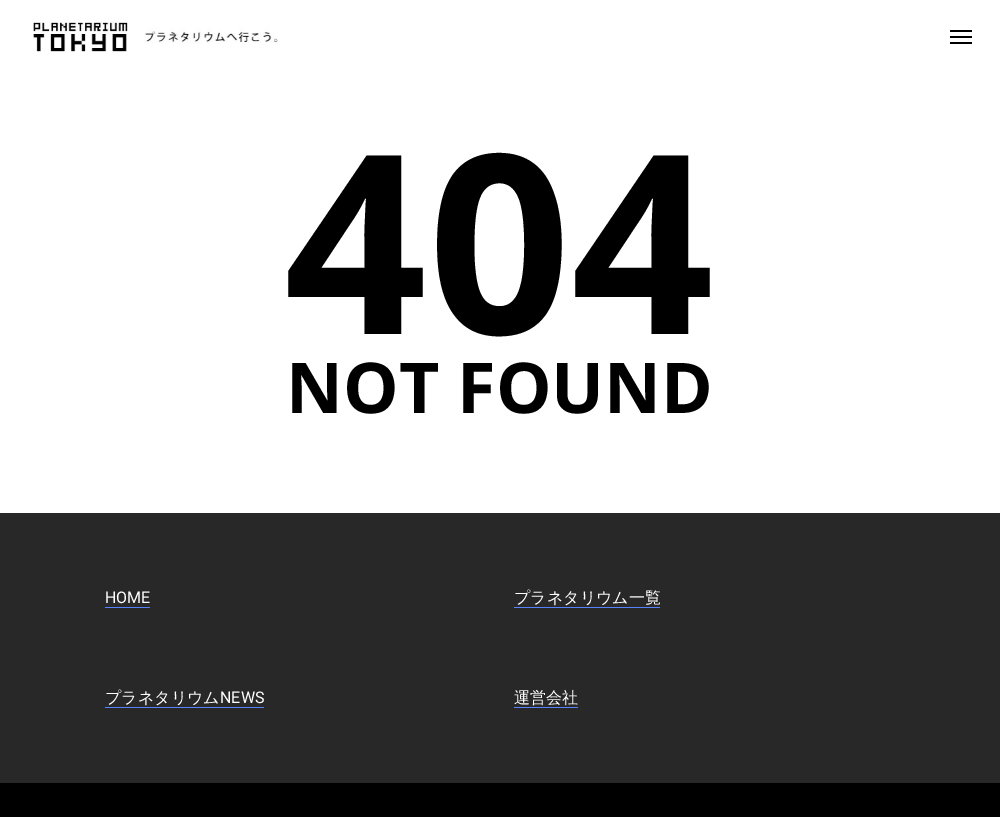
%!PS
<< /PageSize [1000 817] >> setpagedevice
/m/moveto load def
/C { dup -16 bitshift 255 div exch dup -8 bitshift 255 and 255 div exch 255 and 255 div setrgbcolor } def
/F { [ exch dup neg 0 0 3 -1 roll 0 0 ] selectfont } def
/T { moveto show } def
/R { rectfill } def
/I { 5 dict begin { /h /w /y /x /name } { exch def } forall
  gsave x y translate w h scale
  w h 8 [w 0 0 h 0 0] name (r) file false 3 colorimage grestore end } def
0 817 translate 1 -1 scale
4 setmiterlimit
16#282828 C
0 0 1000 817 R
16#FFFFFF C
0 0 1000 513 R
(1.rgb) 33 22 245 30 I
16#000000 C
950 30 22 2 R
950 42 22 2 R
950 36 22 2 R
/OpenSans-Bold 250 F
284 334 m 1 0 (404) ashow
/OpenSans-Bold 70 F
(NOT FOUND) 286 413 T
/Roboto-Regular 16 F
16#FFFFFF C
(HOME) 105 603 T
16#5882FA C
105 607 45 1 R
/WenQuanYiZenHei-Medium 16 F
16#FFFFFF C
(プラネタリウム一覧) 514 603 T
16#5882FA C
514 607 146 1 R
16#FFFFFF C
(プラネタリウム) 105 703 T
16#5882FA C
105 707 159 1 R
/Roboto-Regular 16 F
16#FFFFFF C
(NEWS) 220 703 T
/WenQuanYiZenHei-Medium 16 F
(運営会社) 514 703 T
16#5882FA C
514 707 64 1 R
16#000000 C
0 783 1000 34 R
showpage
